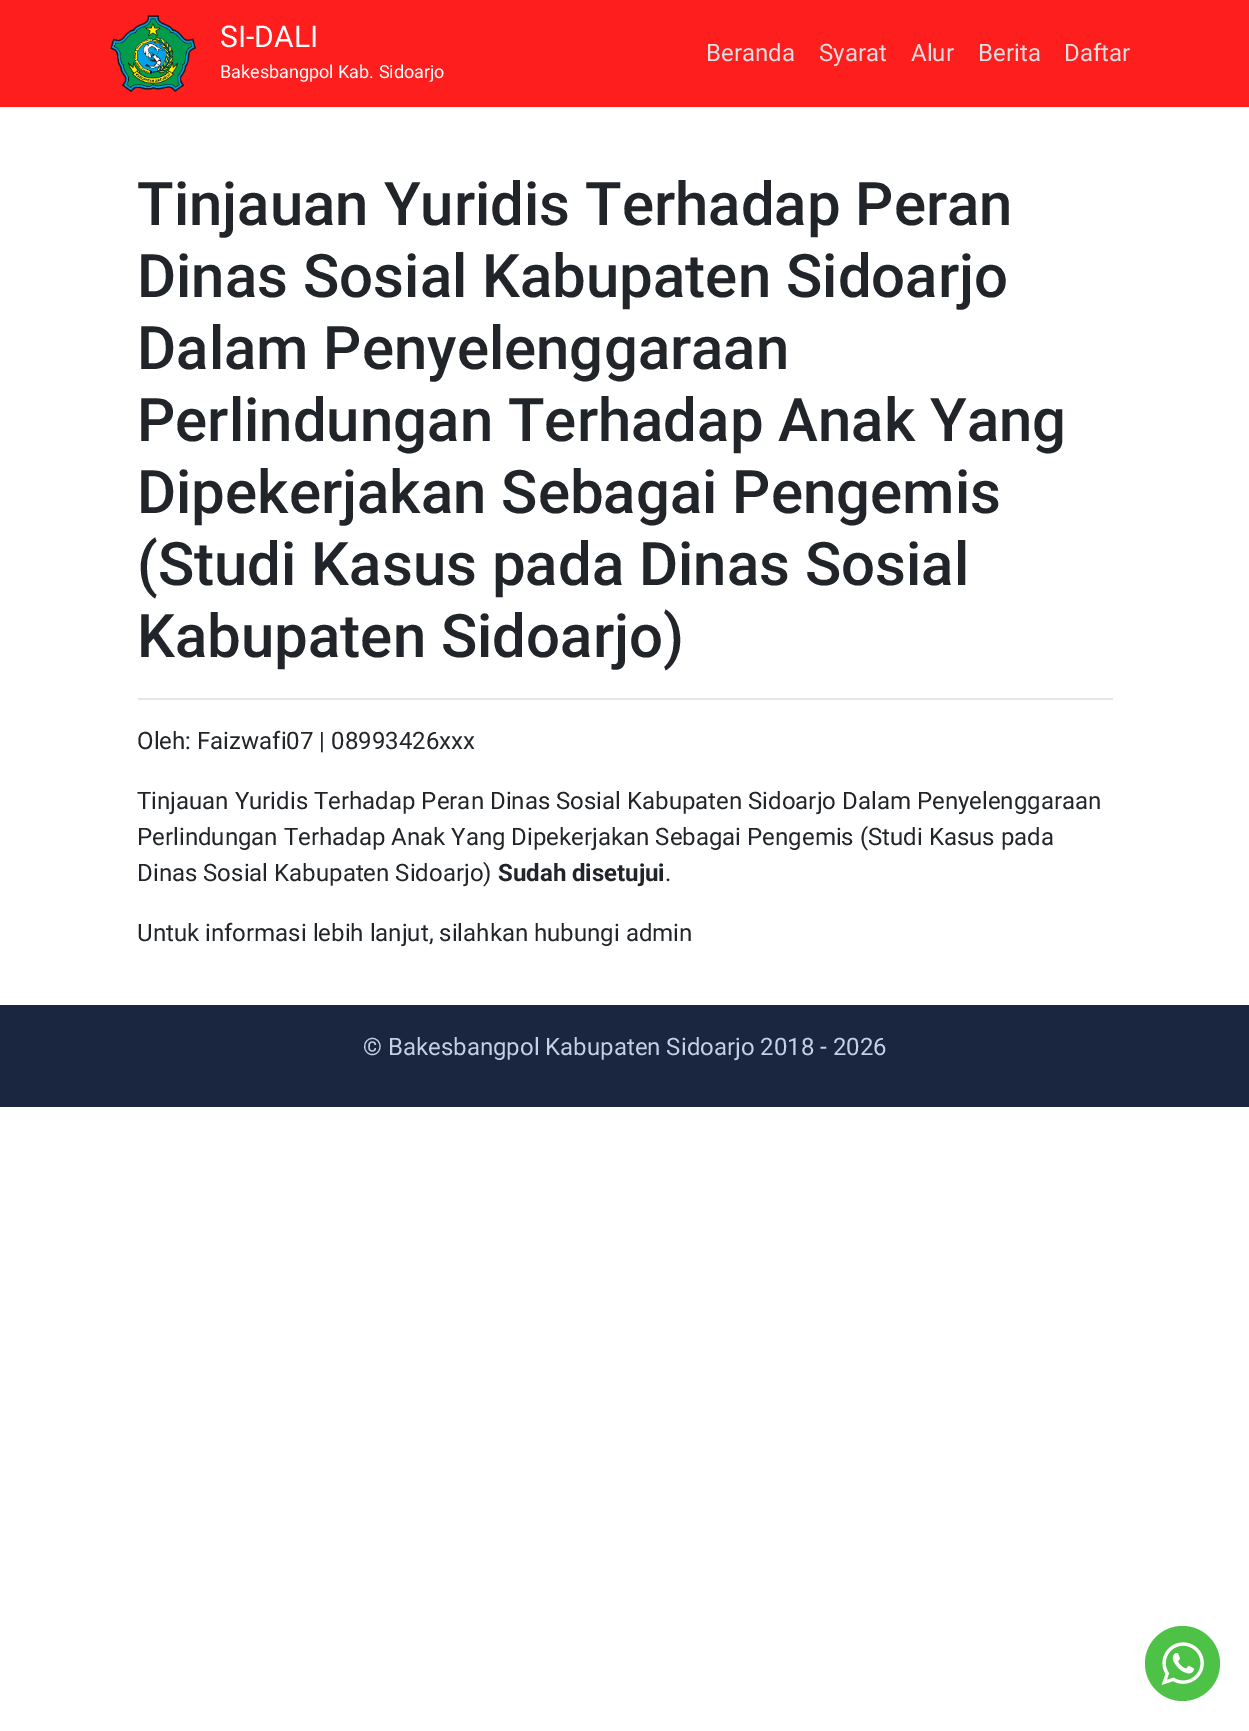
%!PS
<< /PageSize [1249 1731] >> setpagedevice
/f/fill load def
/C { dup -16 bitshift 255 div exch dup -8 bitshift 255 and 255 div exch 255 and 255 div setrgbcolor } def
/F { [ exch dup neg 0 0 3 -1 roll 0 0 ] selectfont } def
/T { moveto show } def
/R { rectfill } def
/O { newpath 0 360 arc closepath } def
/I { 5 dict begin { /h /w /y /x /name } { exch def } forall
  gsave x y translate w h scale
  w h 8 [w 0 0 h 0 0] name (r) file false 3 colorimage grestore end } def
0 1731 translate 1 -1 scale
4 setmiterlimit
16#FFFFFF C
0 0 1249 1731 R
16#FF1E1E C
0 0 1249 107 R
(1.rgb) 110 15 87 78 I
/Roboto-Regular 30 F
16#FFFFFF C
(SI-DALI) 220 47 T
/Roboto-Regular 18 F
(Bakesbangpol Kab. Sidoarjo) 220 78 T
/Roboto-Regular 24 F
16#E2E0E0 C
(Beranda) 706 61 T
(Syarat) 819 61 T
(Alur) 911 61 T
(Berita) 978 61 T
(Daftar) 1064 61 T
/Roboto-Medium 60 F
16#212529 C
(Tinjauan Yuridis Terhadap Peran) 137 225 T
(Dinas Sosial Kabupaten Sidoarjo) 137 297 T
(Dalam Penyelenggaraan) 137 369 T
(Perlindungan Terhadap Anak Yang) 137 441 T
(Dipekerjakan Sebagai Pengemis) 137 513 T
(\(Studi Kasus pada Dinas Sosial) 137 585 T
(Kabupaten Sidoarjo\)) 137 657 T
16#E6E6E6 C
138 698 975 2 R
/Roboto-Regular 24 F
16#212529 C
(Oleh: Faizwafi07 | 08993426xxx) 137 749 T
(Tinjauan Yuridis Terhadap Peran Dinas Sosial Kabupaten Sidoarjo Dalam Penyelenggaraan) 137 809 T
(Perlindungan Terhadap Anak Yang Dipekerjakan Sebagai Pengemis \(Studi Kasus pada) 137 845 T
(Dinas Sosial Kabupaten Sidoarjo\)) 137 881 T
/Roboto-Bold 24 F
(Sudah disetujui) 498 881 T
/Roboto-Regular 24 F
(.) 665 881 T
(Untuk informasi lebih lanjut, silahkan hubungi admin) 137 941 T
16#1A263F C
0 1005 1249 102 R
16#C3D0E5 C
(© Bakesbangpol Kabupaten Sidoarjo 2018 - 2026) 363 1055 T
16#4DC247 C
1182.5 1663.5 37.5 O f
(2.rgb) 1161 1642 43 43 I
showpage
